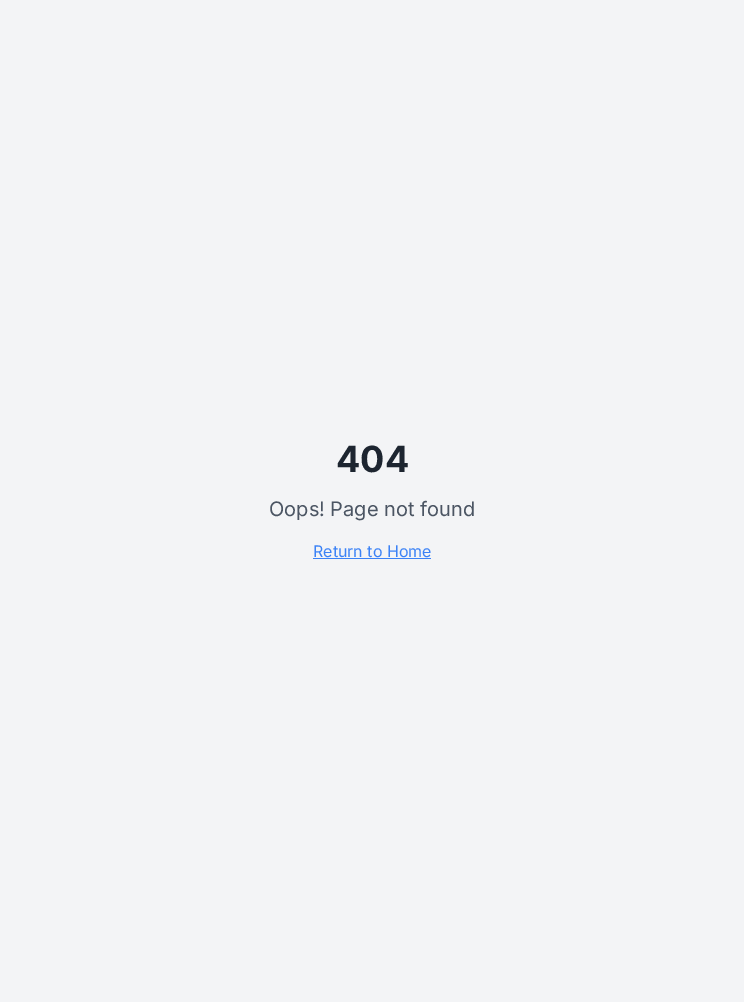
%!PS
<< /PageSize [744 1002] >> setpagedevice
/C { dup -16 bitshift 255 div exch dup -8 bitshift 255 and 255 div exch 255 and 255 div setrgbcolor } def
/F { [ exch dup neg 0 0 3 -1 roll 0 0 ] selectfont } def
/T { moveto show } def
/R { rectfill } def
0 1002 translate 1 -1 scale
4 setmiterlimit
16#F3F4F6 C
0 0 744 1002 R
/Inter-Bold 36 F
16#1D2530 C
(404) 336 472 T
/Inter-Regular 20 F
16#4B5563 C
(Oops! Page not found) 269 516 T
/Inter-Regular 16 F
16#3B82F6 C
(Return to Home) 313 557 T
313 558 118 1 R
showpage
